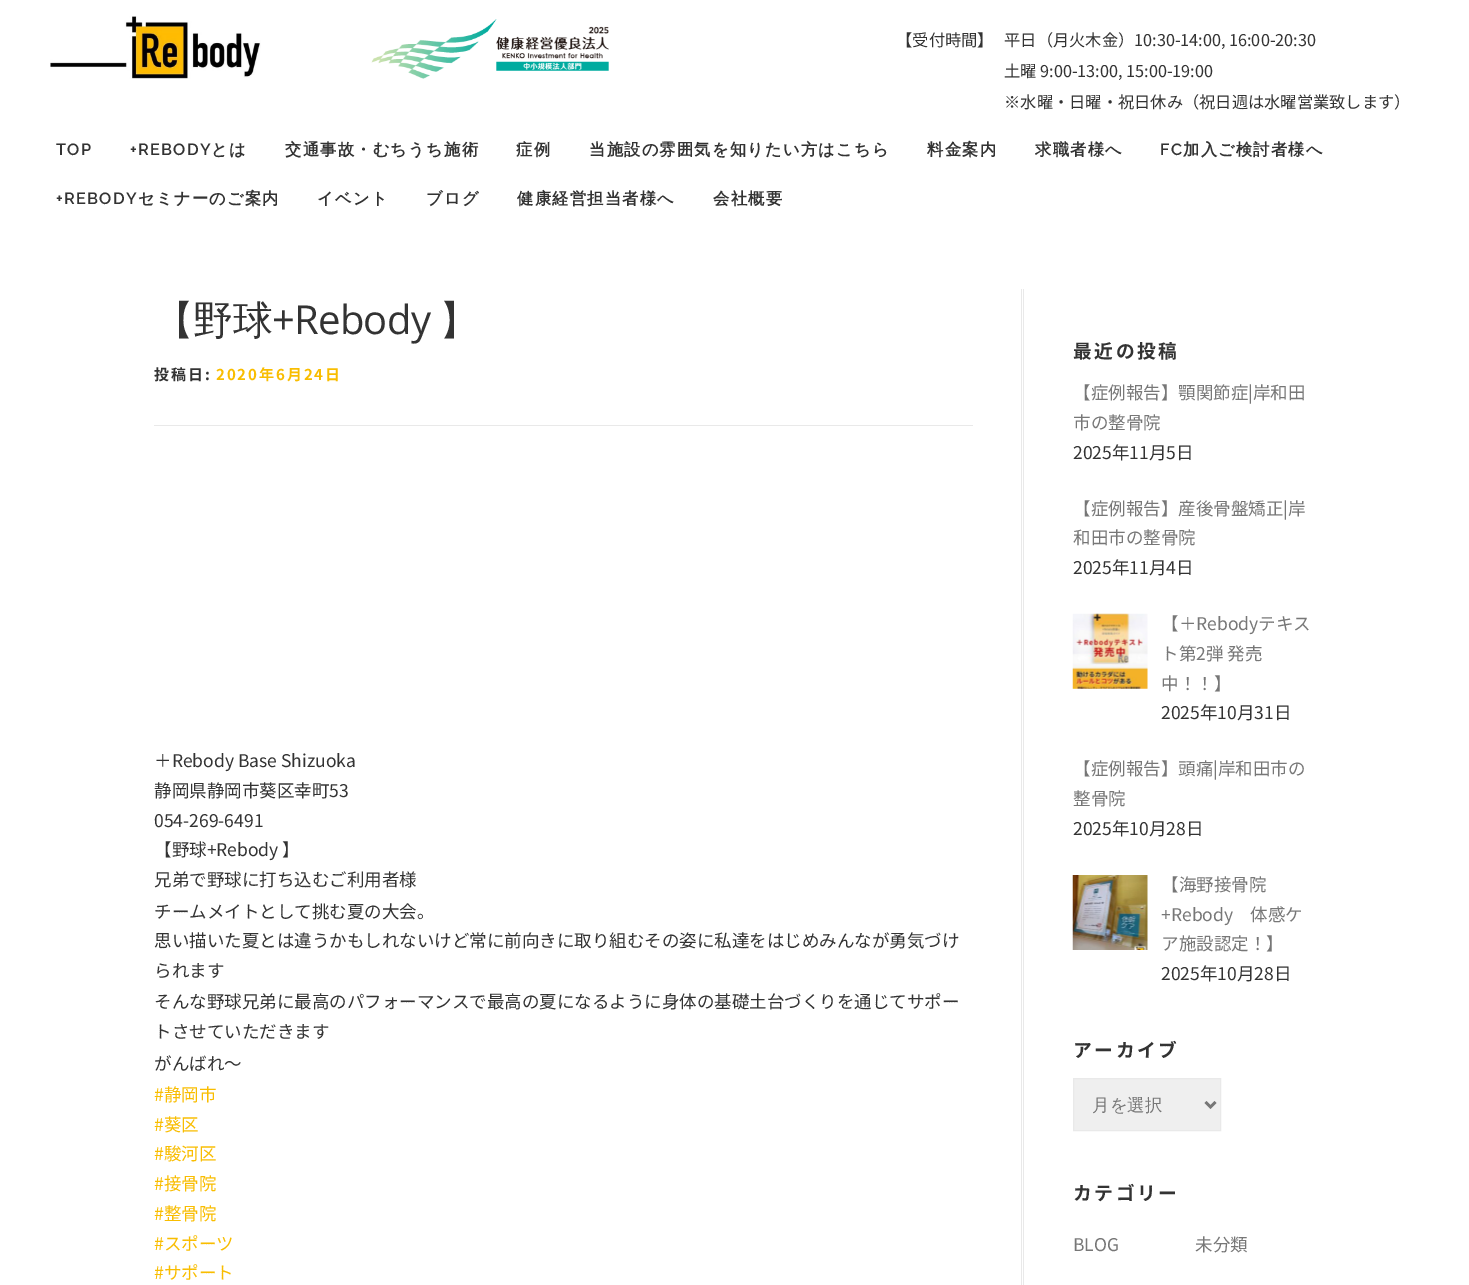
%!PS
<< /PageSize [1469 1285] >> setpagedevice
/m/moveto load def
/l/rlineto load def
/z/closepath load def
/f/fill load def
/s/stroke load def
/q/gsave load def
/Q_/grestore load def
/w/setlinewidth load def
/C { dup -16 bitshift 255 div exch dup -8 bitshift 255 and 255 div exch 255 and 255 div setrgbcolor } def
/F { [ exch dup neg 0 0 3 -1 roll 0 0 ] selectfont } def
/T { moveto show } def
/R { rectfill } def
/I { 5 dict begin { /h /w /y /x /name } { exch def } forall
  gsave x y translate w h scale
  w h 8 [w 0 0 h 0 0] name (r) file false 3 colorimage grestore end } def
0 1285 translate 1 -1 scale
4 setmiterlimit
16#FFFFFF C
0 0 1469 1285 R
(1.rgb) 371 19 238 60 I
/NotoSansJP-Regular 16.25 F
16#333333 C
(【受付時間】) 896 46 T
(平日（月火木金）10:30-14:00, 16:00-20:30) 1004 46 T
(土曜 9:00-13:00, 15:00-19:00) 1004 77 T
(※水曜・日曜・祝日休み（祝日週は水曜営業致します）) 1004 108 T
(2.rgb) 50 16 211 63 I
/Raleway-SemiBold 16.25 F
56 155 m 1.25 0 (TOP) ashow
130 155 m 1.25 0 (+REBODY) ashow
/WenQuanYiZenHei-Bold 16.25 F
211 155 m 1.25 0 (とは) ashow
285 155 m 1.25 0 (交通事故・むちうち施術) ashow
516 155 m 1.25 0 (症例) ashow
589 155 m 1.25 0 (当施設の雰囲気を知りたい方はこちら) ashow
927 155 m 1.25 0 (料金案内) ashow
1035 155 m 1.25 0 (求職者様へ) ashow
/Raleway-SemiBold 16.25 F
1160 155 m 1.25 0 (FC) ashow
/WenQuanYiZenHei-Bold 16.25 F
1183 155 m 1.25 0 (加入ご検討者様へ) ashow
/Raleway-SemiBold 16.25 F
56 204 m 1.25 0 (+REBODY) ashow
/WenQuanYiZenHei-Bold 16.25 F
138 204 m 1.25 0 (セミナーのご案内) ashow
317 204 m 1.25 0 (イベント) ashow
426 204 m 1.25 0 (ブログ) ashow
517 204 m 1.25 0 (健康経営担当者様へ) ashow
713 204 m 1.25 0 (会社概要) ashow
16#E9E9E9 C
1021 289 1 996 R
/WenQuanYiZenHei-Medium 40 F
16#333333 C
154 334 m -.75 0 (【野球) ashow
/OpenSans-Regular 40 F
272 334 m -.75 0 (+Rebody) ashow
/WenQuanYiZenHei-Medium 40 F
439 334 m -.75 0 (】) ashow
16#E9E9E9 C
154 425 819 1 R
/NotoSansJP-Bold 15 F
16#333333 C
154 380 m 1.9 0 (投稿日:) ashow
16#F9BD00 C
216 380 m 1.9 0 (2020年6月24日) ashow
/NotoSansJP-Regular 17.5 F
16#333333 C
(＋Rebody Base Shizuoka) 154 767 T
(静岡県静岡市葵区幸町53) 154 797 T
(054-269-6491) 154 827 T
(【野球+Rebody 】) 154 856 T
(兄弟で野球に打ち込むご利用者様) 154 886 T
(チームメイトとして挑む夏の大会。) 154 918 T
(思い描いた夏とは違うかもしれないけど常に前向きに取り組むその姿に私達をはじめみんなが勇気づけ) 154 947 T
(られます) 154 977 T
(そんな野球兄弟に最高のパフォーマンスで最高の夏になるように身体の基礎土台づくりを通じてサポー) 154 1008 T
(トさせていただきます) 154 1038 T
(がんばれ〜) 154 1070 T
16#F9BD00 C
(#静岡市) 154 1101 T
(#葵区) 154 1131 T
(#駿河区) 154 1160 T
(#接骨院) 154 1190 T
(#整骨院) 154 1220 T
(#スポーツ) 154 1250 T
(#サポート) 154 1279 T
16#E9E9E9 C
1023 289 1 996 R
/NotoSansJP-Bold 18.75 F
16#333333 C
1073 358 m 2.5 0 (最近の投稿) ashow
/NotoSansJP-Regular 17.5 F
16#777777 C
(【症例報告】顎関節症|岸和田) 1073 399 T
(市の整骨院) 1073 429 T
16#333333 C
(2025年11月5日) 1073 459 T
16#777777 C
(【症例報告】産後骨盤矯正|岸) 1073 515 T
(和田市の整骨院) 1073 544 T
16#333333 C
(2025年11月4日) 1073 574 T
(3.rgb) 1072 613 76 76 I
16#777777 C
(【＋Rebodyテキス) 1161 630 T
(ト第2弾 発売) 1161 660 T
(中！！】) 1161 690 T
16#333333 C
(2025年10月31日) 1161 719 T
16#777777 C
(【症例報告】頭痛|岸和田市の) 1073 775 T
(整骨院) 1073 805 T
16#333333 C
(2025年10月28日) 1073 835 T
(4.rgb) 1072 875 76 75 I
16#777777 C
(【海野接骨院) 1161 891 T
(+Rebody　体感ケ) 1161 921 T
(ア施設認定！】) 1161 950 T
16#333333 C
(2025年10月28日) 1161 980 T
/NotoSansJP-Bold 18.75 F
1073 1057 m 2.5 0 (アーカイブ) ashow
16#EFEFEF C
1073.5 1078.5 m 147 0 l 0 52 l -147 0 l z q f Q_
16#E9E9E9 C
s
16#777777 C
2.5 w
1205.5 1102 m 5 5 l 5 -5 l s
/WenQuanYiZenHei-Medium 17.5 F
(月を選択) 1092 1111 T
/NotoSansJP-Bold 18.75 F
16#333333 C
1073 1200 m 2.5 0 (カテゴリー) ashow
/NotoSansJP-Regular 17.5 F
16#777777 C
(BLOG) 1073 1251 T
(未分類) 1195 1251 T
showpage
